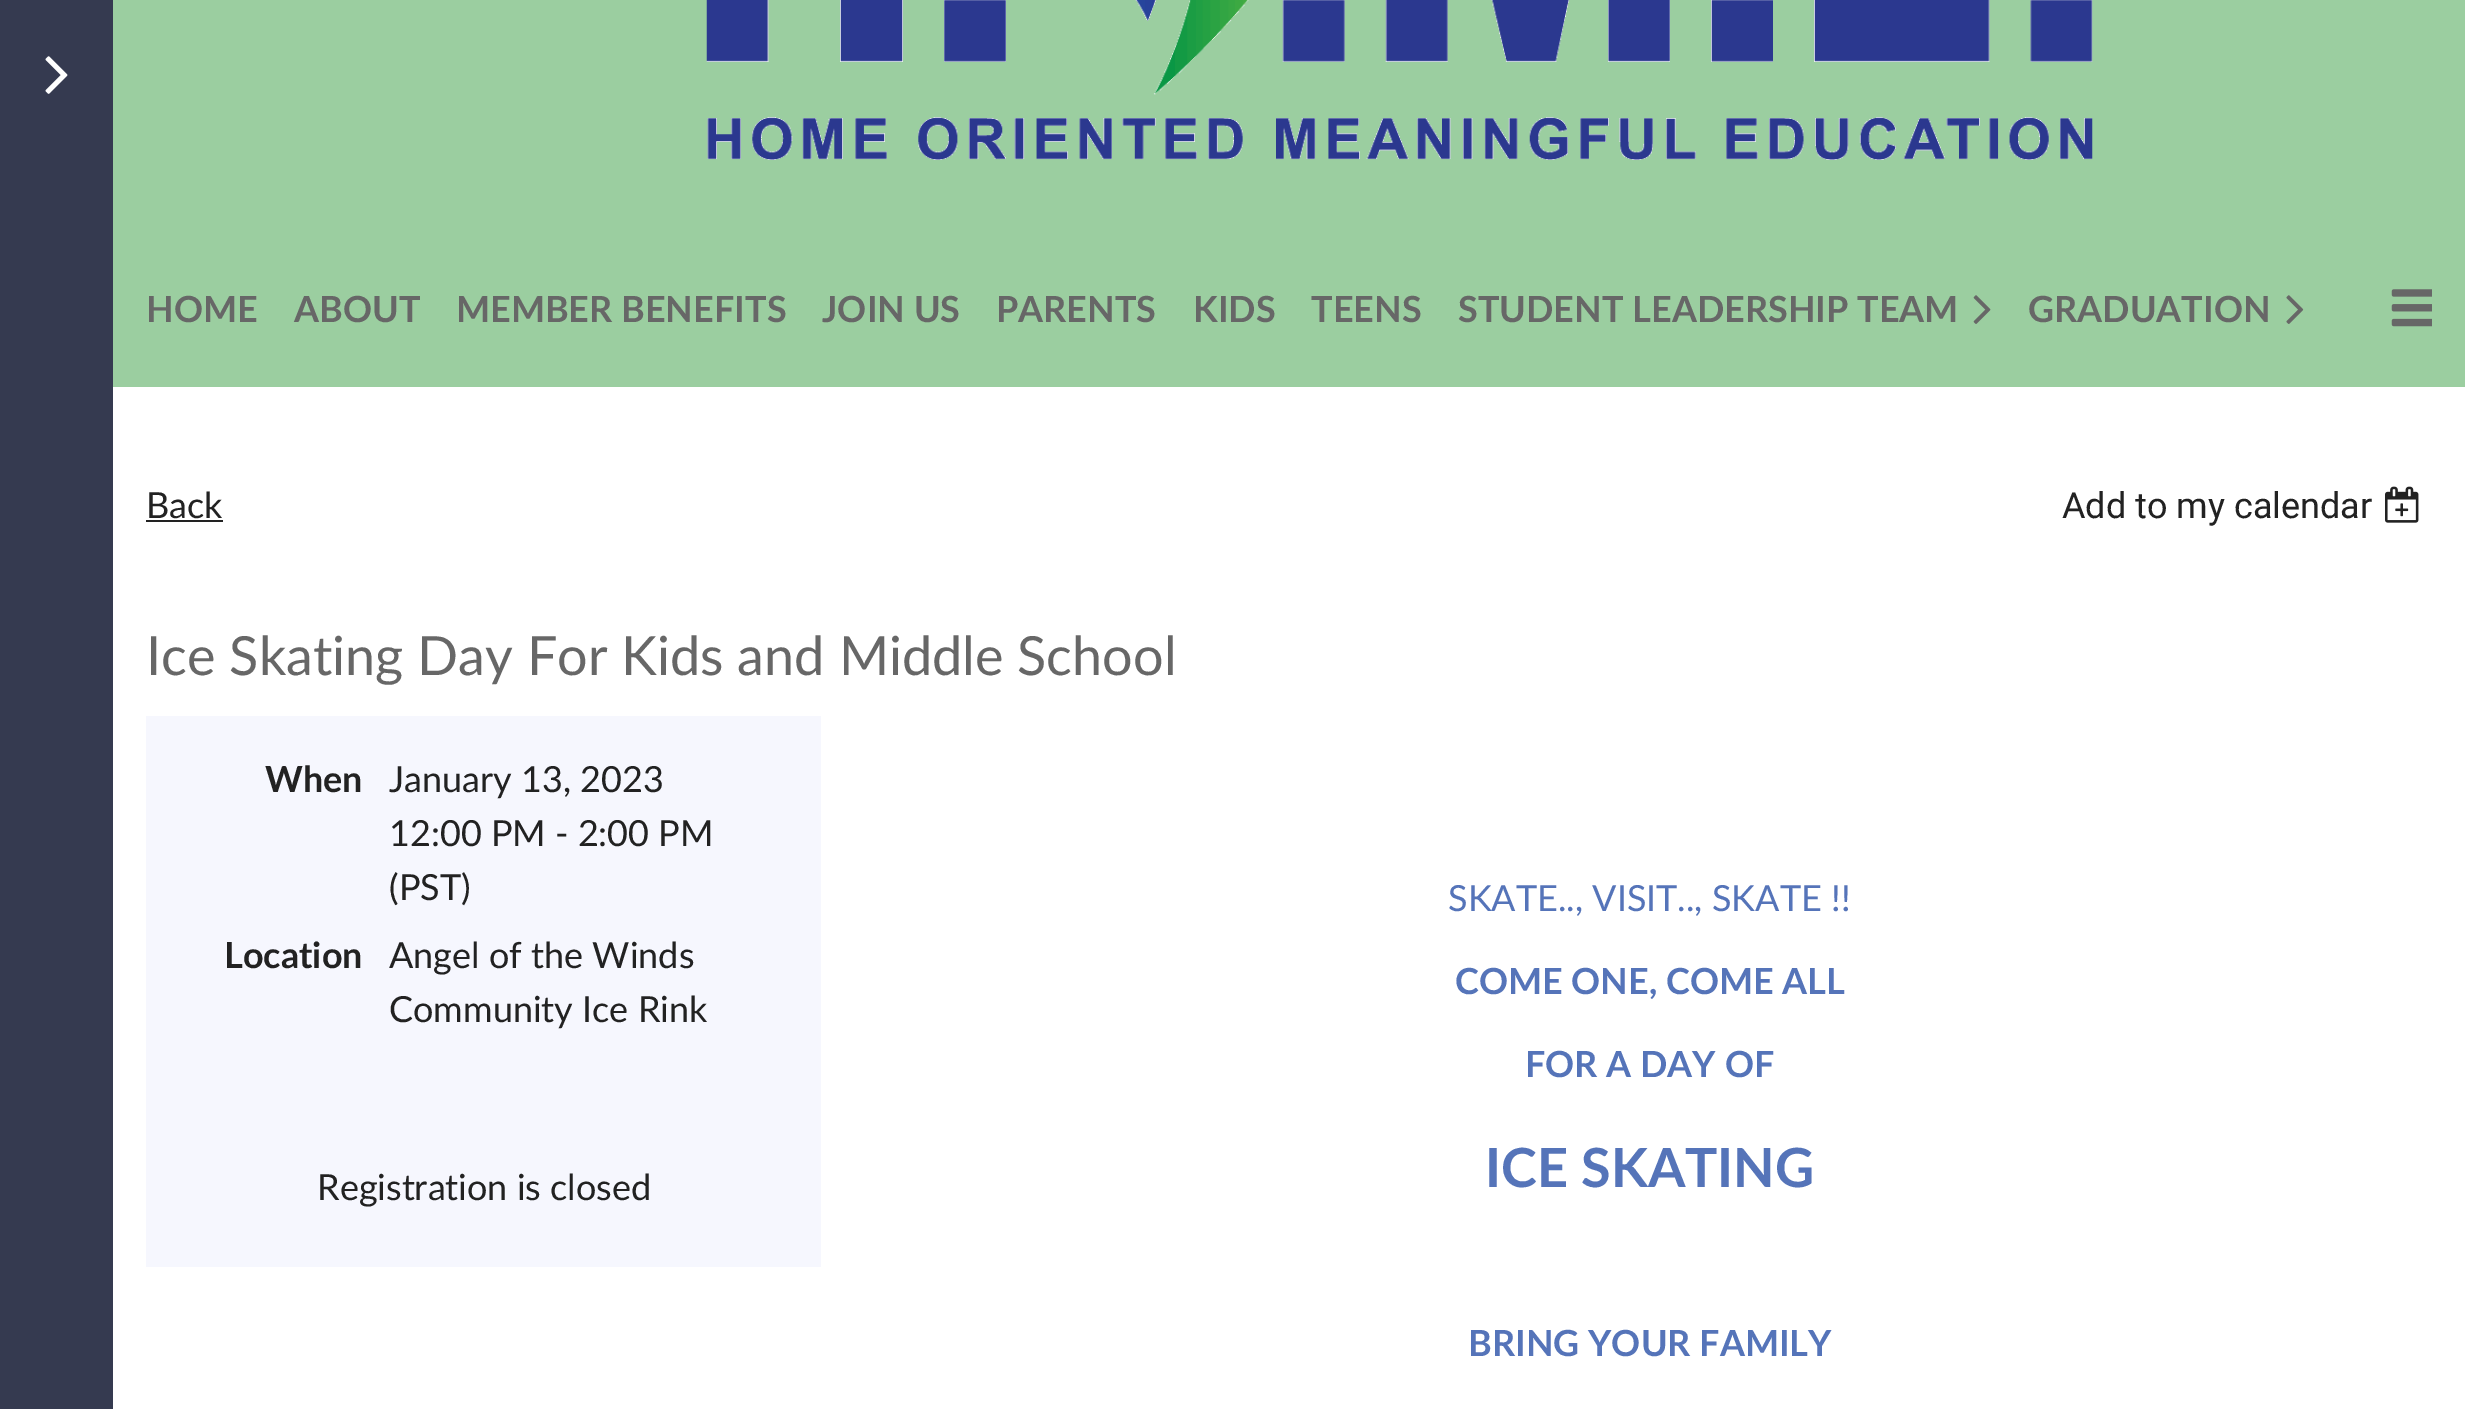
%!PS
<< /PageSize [2465 1409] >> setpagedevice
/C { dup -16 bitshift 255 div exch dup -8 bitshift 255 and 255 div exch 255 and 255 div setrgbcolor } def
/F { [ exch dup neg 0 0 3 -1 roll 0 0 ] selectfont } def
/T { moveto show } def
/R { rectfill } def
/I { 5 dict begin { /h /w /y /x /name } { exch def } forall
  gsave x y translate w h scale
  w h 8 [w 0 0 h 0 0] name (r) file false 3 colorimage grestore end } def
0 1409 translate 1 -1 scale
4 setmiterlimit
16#FFFFFF C
0 0 2465 1409 R
16#353A50 C
0 0 113 1409 R
(1.rgb) 45 56 23 38 I
16#9BCEA0 C
113 0 2352 387 R
(2.rgb) 706 0 1387 160 I
/Lato-Bold 36 F
16#676767 C
(HOME) 146 322 T
(ABOUT) 294 322 T
(MEMBER BENEFITS) 456 322 T
(JOIN US) 822 322 T
(PARENTS) 996 322 T
(KIDS) 1193 322 T
(TEENS) 1311 322 T
(STUDENT LEADERSHIP TEAM) 1458 322 T
(3.rgb) 1973 295 18 29 I
(GRADUATION) 2028 322 T
(4.rgb) 2286 295 18 29 I
(5.rgb) 2391 289 41 38 I
/Lato-Regular 36 F
16#222222 C
(Back) 146 518 T
146 520 77 2 R
/Roboto-Regular 36 F
(Add to my calendar) 2062 518 T
(6.rgb) 2385 486 34 37 I
/Lato-Regular 54 F
16#676767 C
(Ice Skating Day For Kids and Middle School) 146 675 T
16#F6F7FE C
146 716 675 551 R
/Lato-Bold 36 F
16#222222 C
(When) 265 792 T
/Lato-Regular 36 F
(January 13, 2023) 389 792 T
(12:00 PM - 2:00 PM) 389 846 T
(\(PST\)) 389 900 T
/Lato-Bold 36 F
(Location) 224 968 T
/Lato-Regular 36 F
(Angel of the Winds) 389 968 T
(Community Ice Rink) 389 1022 T
(Registration is closed) 317 1200 T
16#5574B9 C
(SKATE.., VISIT.., SKATE !!) 1448 911 T
/Lato-Bold 36 F
(COME ONE, COME ALL) 1455 994 T
(FOR A DAY OF) 1525 1077 T
/Lato-Bold 54 F
(ICE SKATING) 1485 1187 T
/Lato-Bold 36 F
(BRING YOUR FAMILY) 1468 1356 T
showpage
